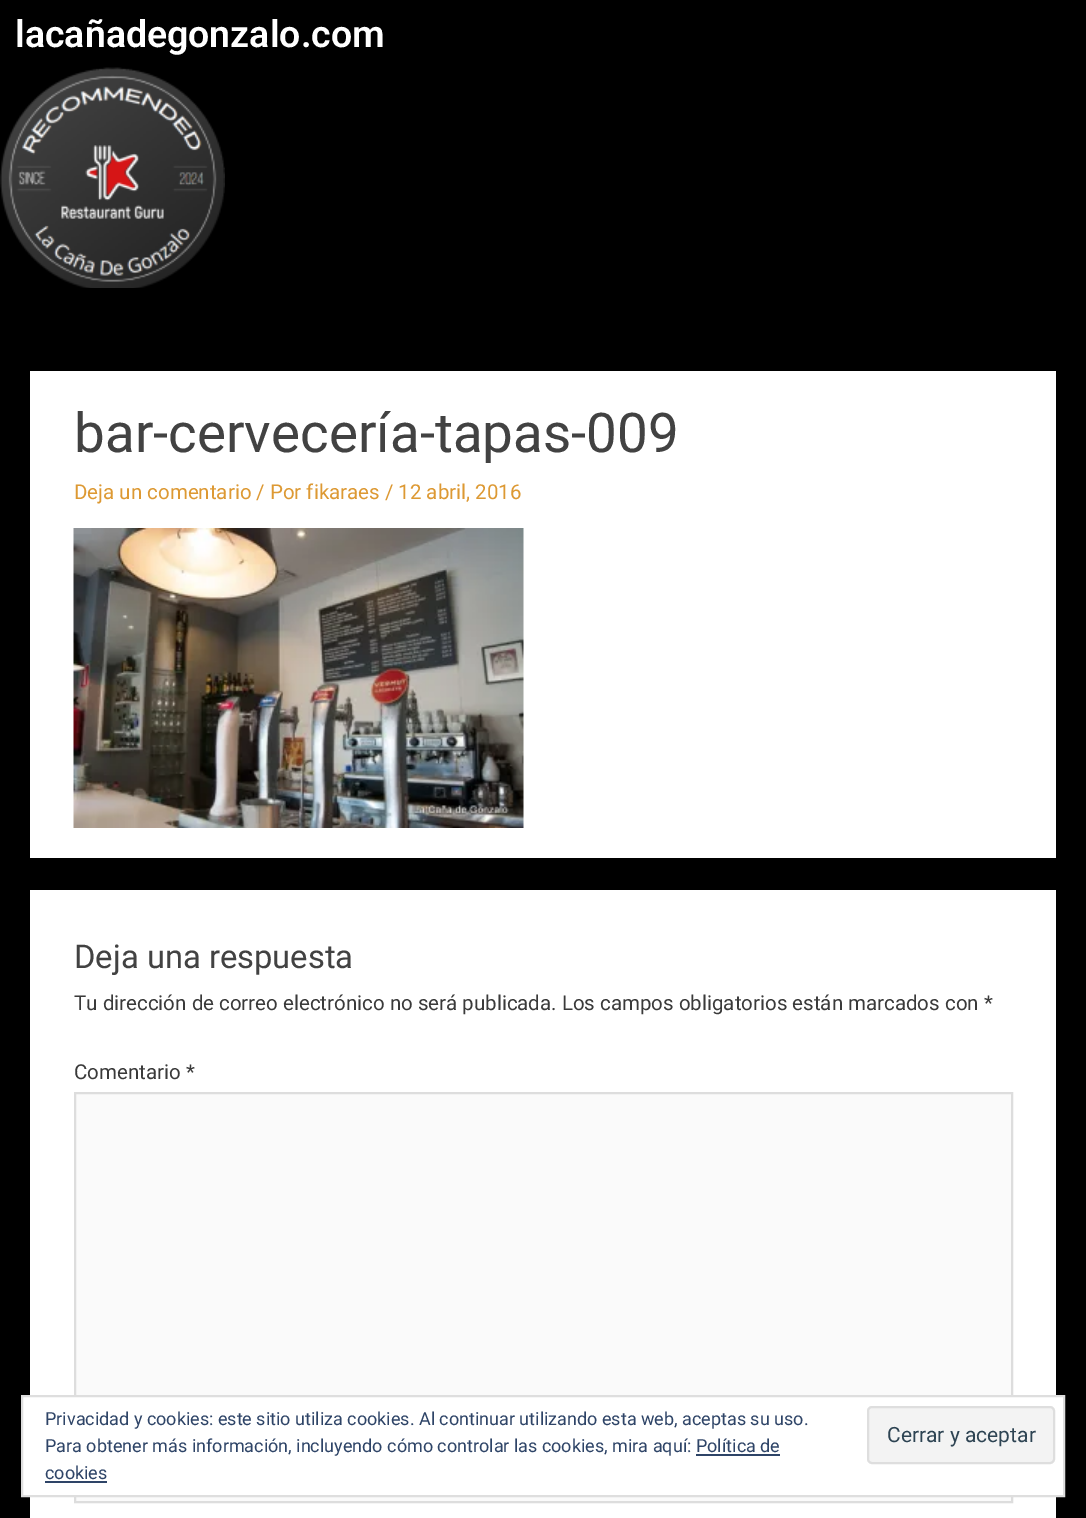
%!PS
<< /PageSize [1086 1518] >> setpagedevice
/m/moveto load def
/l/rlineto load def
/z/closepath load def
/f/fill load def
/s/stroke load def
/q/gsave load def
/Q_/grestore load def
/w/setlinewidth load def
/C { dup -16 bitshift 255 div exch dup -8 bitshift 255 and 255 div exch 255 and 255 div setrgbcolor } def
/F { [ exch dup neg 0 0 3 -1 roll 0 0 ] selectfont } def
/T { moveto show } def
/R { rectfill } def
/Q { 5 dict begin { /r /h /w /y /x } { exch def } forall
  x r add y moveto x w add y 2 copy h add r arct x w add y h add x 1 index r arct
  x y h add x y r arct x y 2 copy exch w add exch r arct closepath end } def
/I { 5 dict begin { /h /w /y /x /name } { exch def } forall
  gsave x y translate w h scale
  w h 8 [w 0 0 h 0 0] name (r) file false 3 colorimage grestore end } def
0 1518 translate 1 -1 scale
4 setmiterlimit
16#000000 C
0 0 1086 1518 R
/Roboto-SemiBold 37.5 F
16#FFFFFF C
(lacañadegonzalo.com) 15 47 T
(1.rgb) 0 67 225 221 I
30 371 1026 487 R
/Roboto-Regular 54.75 F
16#424242 C
(bar-cervecería-tapas-009) 74 452 T
/Roboto-Regular 20.5 F
16#DD9933 C
(Deja un comentario / Por fikaraes / 12 abril, 2016) 74 499 T
(2.rgb) 73 528 451 300 I
16#FFFFFF C
30 890 1026 628 R
/Roboto-Regular 32.75 F
16#424242 C
(Deja una respuesta) 74 968 T
/Roboto-Regular 20.5 F
16#3A3A3A C
(Tu dirección de correo electrónico no será publicada. Los campos obligatorios están marcados con *) 74 1010 T
(Comentario *) 74 1079 T
16#FAFAFA C
76 1094 935 301 R
16#DDDDDD C
2 w
75 1093 937 336 rectstroke
16#FAFAFA C
76 1497 935 4 R
16#DDDDDD C
75 1446 937 56 rectstroke
16#FFFFFF C
22 1396 m 1042 0 l 0 100 l -1042 0 l z q f Q_
16#DEDEDE C
s
/Roboto-Regular 18 F
16#2E4467 C
(Privacidad y cookies: este sitio utiliza cookies. Al continuar utilizando esta web, aceptas su uso.) 45 1425 T
(Para obtener más información, incluyendo cómo controlar las cookies, mira aquí: Política de) 45 1452 T
16#F3F3F3 C
868 1407 186 56 4 Q q f Q_
16#DEDEDE C
s
/Roboto-Regular 21 F
16#2E4453 C
(Cerrar y aceptar) 887 1442 T
/Roboto-Regular 18 F
16#2E4467 C
(cookies) 45 1479 T
696 1454 84 2 R
45 1481 62 2 R
showpage
